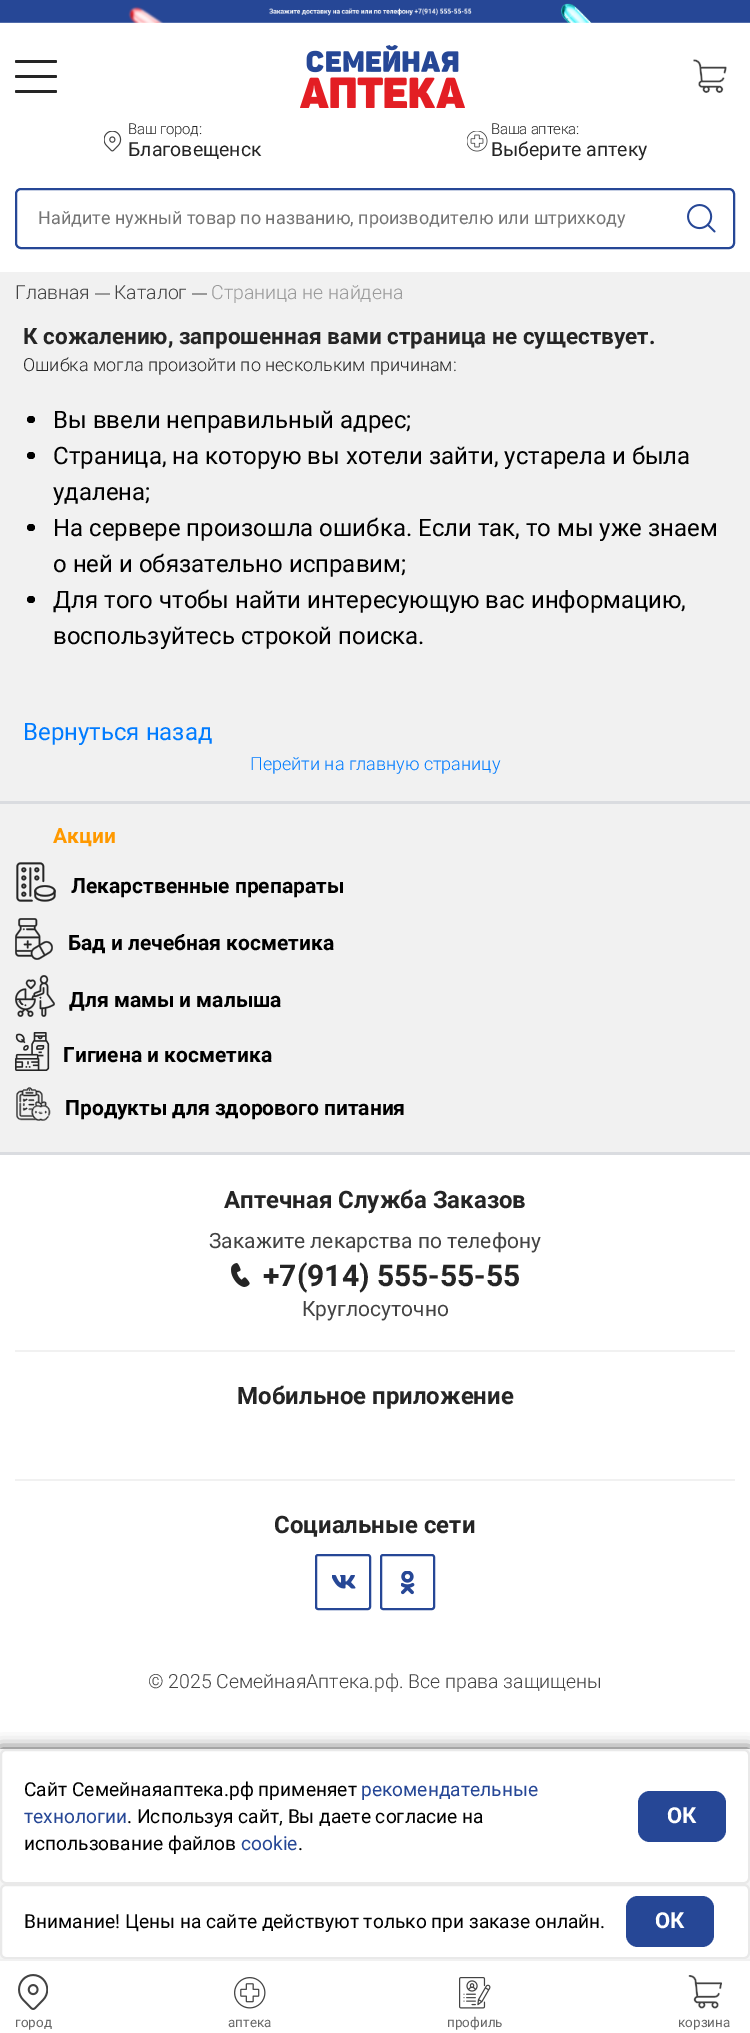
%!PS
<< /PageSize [750 2033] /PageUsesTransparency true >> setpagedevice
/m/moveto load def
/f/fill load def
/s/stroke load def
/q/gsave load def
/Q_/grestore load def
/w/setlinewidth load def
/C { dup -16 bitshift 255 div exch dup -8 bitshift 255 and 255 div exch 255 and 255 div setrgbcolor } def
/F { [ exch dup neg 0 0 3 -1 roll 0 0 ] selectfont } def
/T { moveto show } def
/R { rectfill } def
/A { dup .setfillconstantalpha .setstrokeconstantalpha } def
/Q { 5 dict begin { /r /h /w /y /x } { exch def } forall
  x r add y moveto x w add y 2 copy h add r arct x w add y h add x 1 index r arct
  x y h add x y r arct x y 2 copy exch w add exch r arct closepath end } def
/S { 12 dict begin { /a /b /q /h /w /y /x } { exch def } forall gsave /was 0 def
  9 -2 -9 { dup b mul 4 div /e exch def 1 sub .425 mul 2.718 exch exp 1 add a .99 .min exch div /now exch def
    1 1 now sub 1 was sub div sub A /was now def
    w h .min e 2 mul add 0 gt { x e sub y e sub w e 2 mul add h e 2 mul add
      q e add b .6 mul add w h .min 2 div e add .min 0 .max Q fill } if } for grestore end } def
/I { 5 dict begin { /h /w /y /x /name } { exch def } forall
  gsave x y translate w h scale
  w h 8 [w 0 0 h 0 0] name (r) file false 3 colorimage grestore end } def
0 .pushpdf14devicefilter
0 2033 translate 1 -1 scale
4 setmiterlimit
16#F1F1F1 C
0 0 750 2033 R
16#FFFFFF C
0 22 750 250 R
(1.rgb) 0 0 750 23 I
16#252525 C
15 60 42 3 1.5 Q f
15 75 42 3 1.5 Q f
15 90 42 3 1.5 Q f
(2.rgb) 300 45 165 63 I
(3.rgb) 693 59 34 34 I
(4.rgb) 104 131 18 21 I
/Roboto-Light 15 F
128 134 m -.25 0 (Ваш город:) ashow
/Roboto-Regular 19.5 F
(Благовещенск) 128 156 T
(5.rgb) 467 131 21 21 I
/Roboto-Light 15 F
491 134 m -.25 0 (Ваша аптека:) ashow
/Roboto-Regular 19.5 F
(Выберите аптеку) 491 156 T
16#264796 C
2 w
16 189 718 59 5 Q s
/Roboto-Regular 18 F
16#757575 C
(Найдите нужный товар по названию, производителю или штрихкоду) 38 224 T
(6.rgb) 687 204 29 29 I
/Roboto-Light 19.5 F
16#434343 C
(Главная) 15 299 T
16#9A9A9A C
95 293 15 2 R
16#434343 C
(Каталог) 114 299 T
16#9A9A9A C
192 293 15 2 R
(Страница не найдена) 211 299 T
/Roboto-Bold 22.5 F
16#252525 C
(К сожалению, запрошенная вами страница не существует.) 23 344 T
/Roboto-Light 18 F
(Ошибка могла произойти по нескольким причинам:) 23 371 T
16#000000 C
27 416 8 7 3.5 Q f
/Roboto-Regular 24 F
(Вы ввели неправильный адрес;) 53 428 T
27 452 8 7 3.5 Q f
(Страница, на которую вы хотели зайти, устарела и была) 53 464 T
(удалена;) 53 500 T
27 524 8 7 3.5 Q f
(На сервере произошла ошибка. Если так, то мы уже знаем) 53 536 T
(о ней и обязательно исправим;) 53 572 T
27 596 8 7 3.5 Q f
(Для того чтобы найти интересующую вас информацию,) 53 608 T
(воспользуйтесь строкой поиска.) 53 644 T
16#007BFF C
(Вернуться назад) 23 740 T
/Roboto-Light 18 F
(Перейти на главную страницу) 250 770 T
16#DADCE0 C
0 801 750 3 R
/Roboto-Bold 21 F
16#FF9900 C
(Акции) 53 843 T
(7.rgb) 16 862 40 40 I
16#000000 C
(Лекарственные препараты) 71 893 T
(8.rgb) 15 918 38 42 I
(Бад и лечебная косметика) 68 950 T
(9.rgb) 15 975 40 42 I
(Для мамы и малыша) 69 1007 T
(10.rgb) 15 1032 35 39 I
(Гигиена и косметика) 63 1062 T
(11.rgb) 16 1087 35 34 I
(Продукты для здорового питания) 65 1115 T
16#FFFFFF C
0 1155 750 594 R
16#DADCE0 C
0 1152 750 3 R
/Roboto-Bold 24 F
16#252525 C
(Аптечная Служба Заказов) 224 1208 T
/Roboto-Regular 21 F
16#434343 C
(Закажите лекарства по телефону) 209 1248 T
(12.rgb) 231 1263 19 24 I
/Roboto-Bold 30 F
16#252525 C
(+7\(914\) 555-55-55) 263 1286 T
/Roboto-Regular 21 F
16#434343 C
(Круглосуточно) 302 1316 T
16#F1F1F1 C
15 1350 720 2 R
/Roboto-Bold 24 F
16#252525 C
(Мобильное приложение) 237 1404 T
16#F1F1F1 C
15 1479 720 2 R
16#252525 C
(Социальные сети) 274 1533 T
16#264796 C
316 1555 54 54 2 Q s
(13.rgb) 332 1575 24 14 I
381 1555 53 54 2 Q s
(14.rgb) 401 1571 14 24 I
/Roboto-Light 19.5 F
16#434343 C
(© 2025 СемейнаяАптека.рф. Все права защищены) 148 1688 T
16#484848 C
0 1749 750 210 0 7.5 1 S
16#F5F5F5 C
0 1749 750 210 R
16#FFFFFF C
1 1750 748 133 5 Q q f Q_
16#E9E9E9 C
s
/Roboto-Regular 19.2 F
16#000000 C
(Сайт Семейнаяаптека.рф применяет) 24 1796 T
16#264796 C
(рекомендательные) 361 1796 T
(технологии) 24 1823 T
16#000000 C
(. Используя сайт, Вы даете согласие на) 127 1823 T
(использование файлов) 24 1850 T
16#264796 C
(cookie) 241 1850 T
16#000000 C
(.) 298 1850 T
16#264796 C
638 1791 88 51 12 Q f
/Roboto-Bold 22 F
16#FFFFFF C
(ОК) 667 1823 T
1 1885 748 73 5 Q q f Q_
16#E9E9E9 C
s
/Roboto-Regular 19.2 F
16#000000 C
(Внимание! Цены на сайте действуют только при заказе онлайн.) 24 1928 T
16#264796 C
626 1896 88 51 12 Q f
/Roboto-Bold 22 F
16#FFFFFF C
(ОК) 655 1928 T
0 1961 750 72 R
16#F1F1F1 C
0 1959 750 2 R
(15.rgb) 18 1974 30 36 I
/Roboto-Regular 13.5 F
16#666666 C
(город) 15 2027 T
(16.rgb) 234 1977 32 32 I
(аптека) 228 2027 T
(17.rgb) 459 1977 32 32 I
(профиль) 447 2027 T
(18.rgb) 688 1975 34 34 I
(корзина) 678 2027 T
.poppdf14devicefilter showpage
